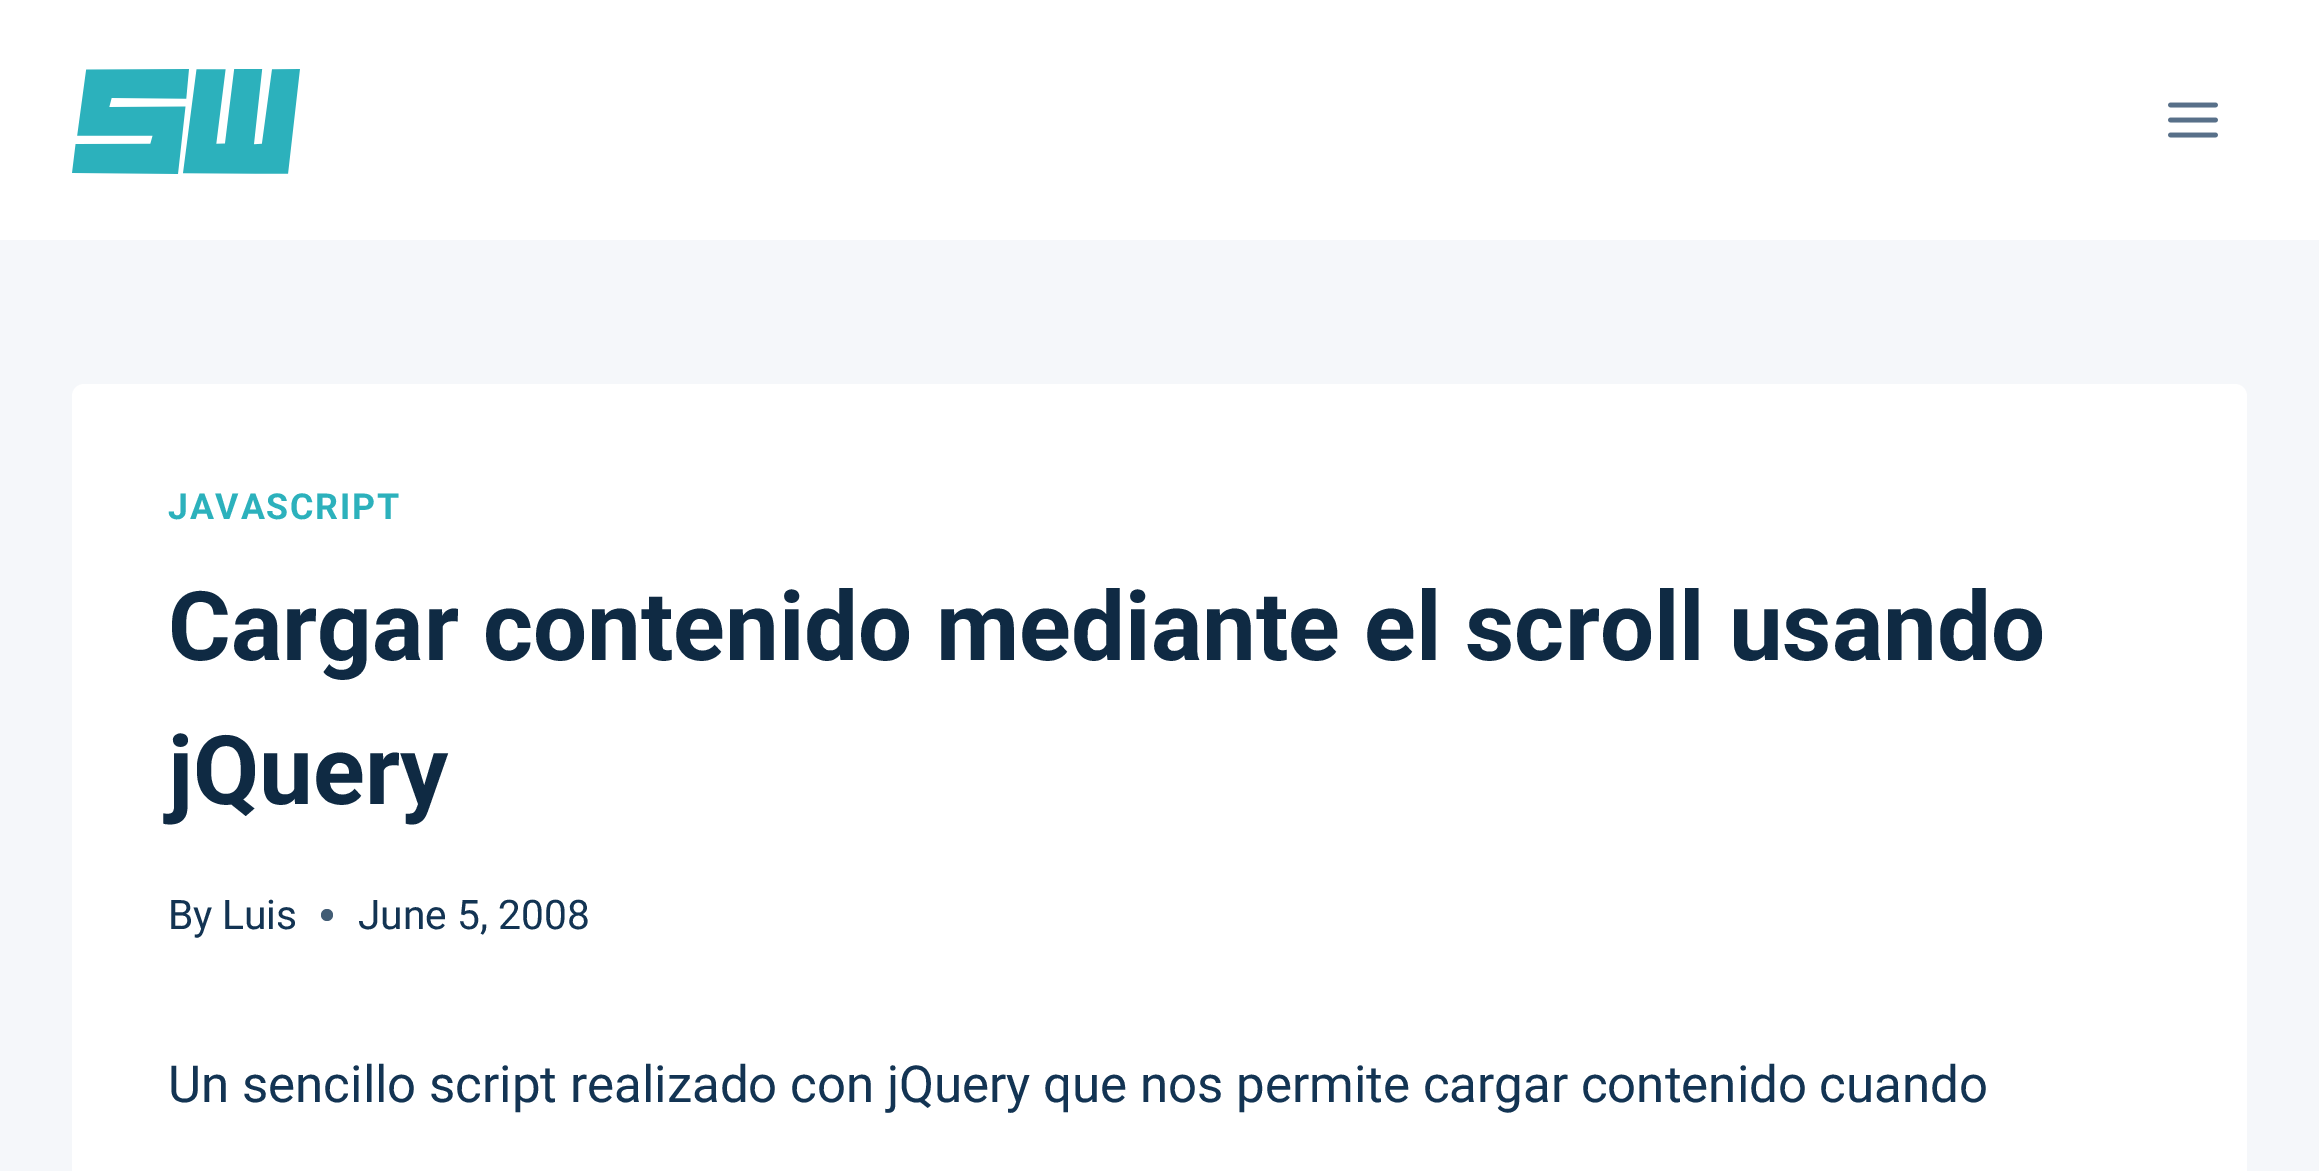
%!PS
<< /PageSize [2319 1171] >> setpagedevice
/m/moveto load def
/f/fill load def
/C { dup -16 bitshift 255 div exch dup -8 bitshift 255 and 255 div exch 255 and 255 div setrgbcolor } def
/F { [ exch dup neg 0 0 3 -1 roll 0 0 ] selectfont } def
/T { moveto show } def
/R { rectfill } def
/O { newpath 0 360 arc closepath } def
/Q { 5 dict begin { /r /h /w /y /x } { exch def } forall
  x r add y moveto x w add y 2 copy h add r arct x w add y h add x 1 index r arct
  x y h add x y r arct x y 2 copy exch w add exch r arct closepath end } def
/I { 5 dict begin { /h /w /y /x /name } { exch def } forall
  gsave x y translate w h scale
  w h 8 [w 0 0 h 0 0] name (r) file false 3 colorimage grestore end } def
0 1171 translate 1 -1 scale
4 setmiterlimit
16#F5F7FA C
0 0 2319 1171 R
16#FFFFFF C
0 0 2319 240 R
(1.rgb) 72 69 228 105 I
(2.rgb) 2168 102 50 36 I
72 384 2175 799 12 Q f
/Roboto-Bold 35.75 F
16#2CB1BC C
168 519 m 1.75 0 (JAVASCRIPT) ashow
/Roboto-Bold 96 F
16#0F2A43 C
(Cargar contenido mediante el scroll usando) 168 660 T
(jQuery) 168 804 T
/Roboto-Regular 40.75 F
16#133453 C
(By) 168 929 T
(Luis) 222 929 T
16#425D75 C
327 915 6 O f
16#133453 C
(June 5, 2008) 358 929 T
/Roboto-Regular 51 F
(Un sencillo script realizado con jQuery que nos permite cargar contenido cuando) 168 1102 T
showpage
